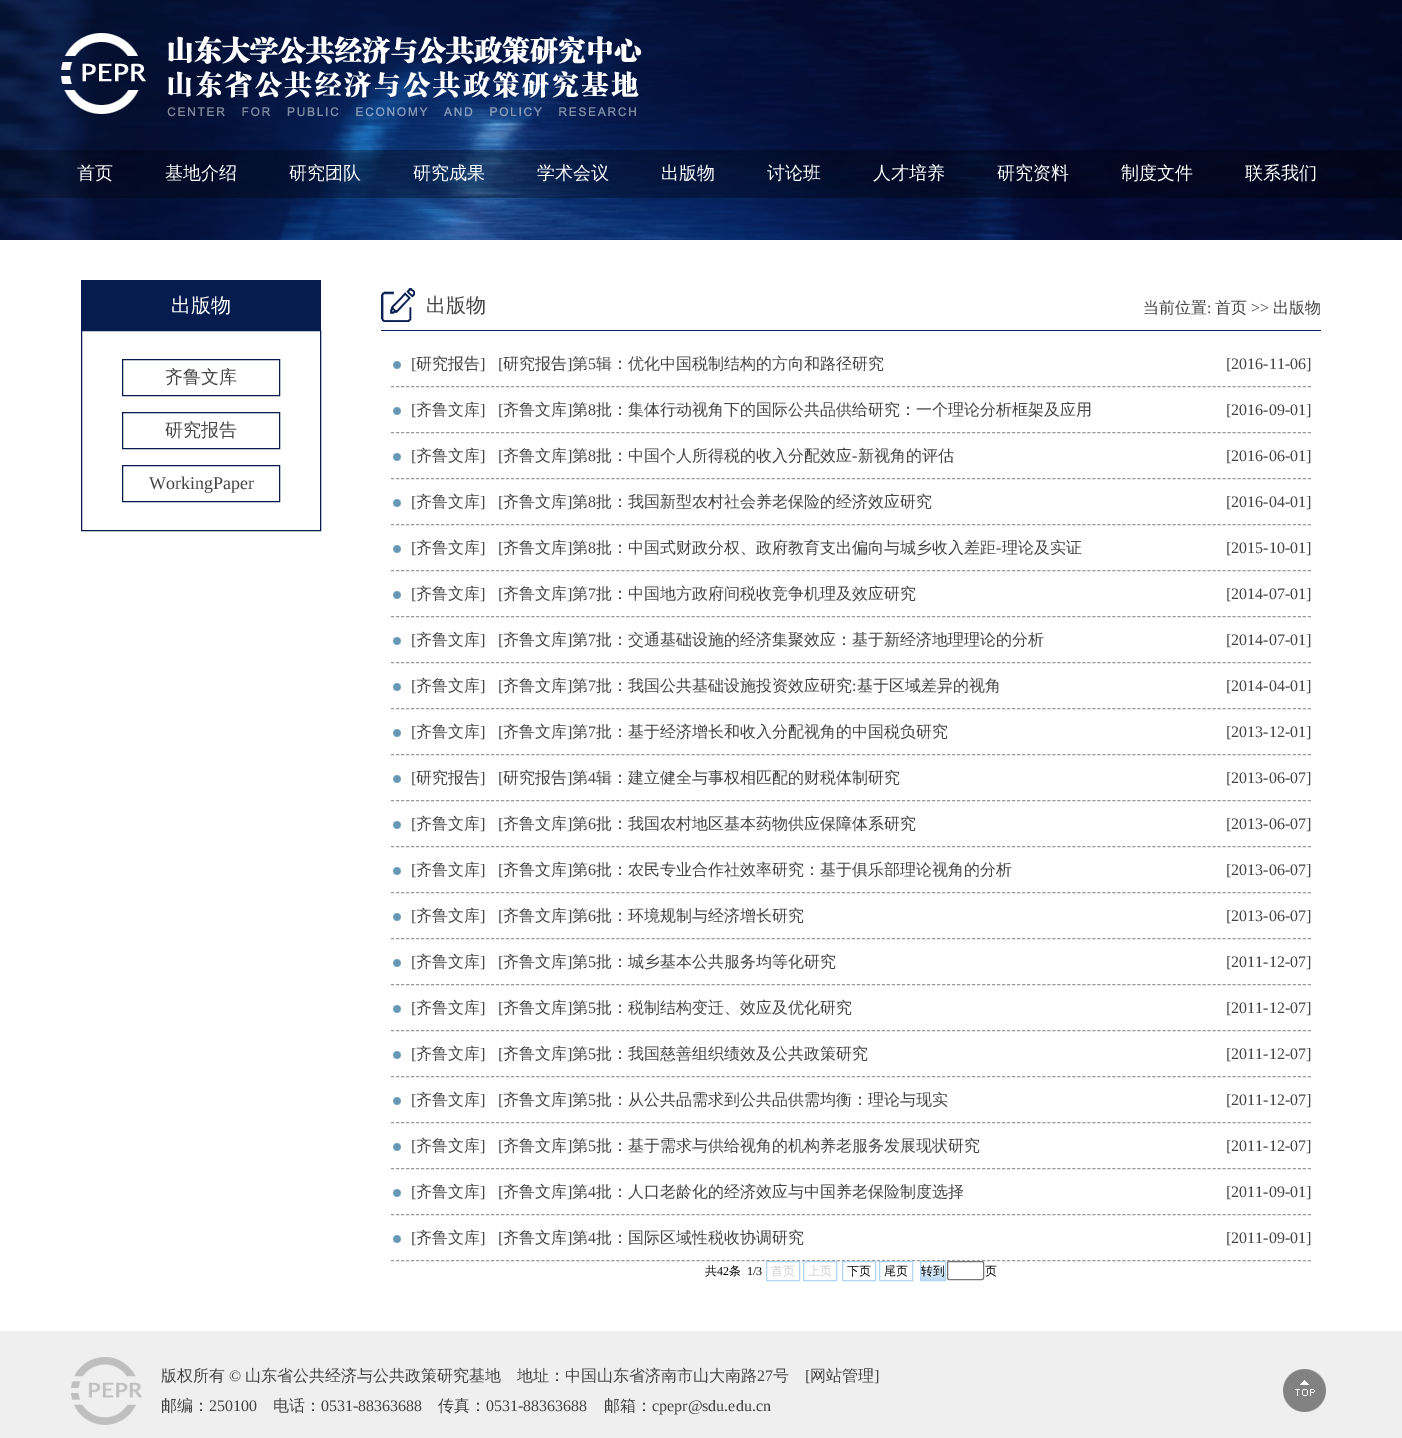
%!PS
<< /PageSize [1402 1438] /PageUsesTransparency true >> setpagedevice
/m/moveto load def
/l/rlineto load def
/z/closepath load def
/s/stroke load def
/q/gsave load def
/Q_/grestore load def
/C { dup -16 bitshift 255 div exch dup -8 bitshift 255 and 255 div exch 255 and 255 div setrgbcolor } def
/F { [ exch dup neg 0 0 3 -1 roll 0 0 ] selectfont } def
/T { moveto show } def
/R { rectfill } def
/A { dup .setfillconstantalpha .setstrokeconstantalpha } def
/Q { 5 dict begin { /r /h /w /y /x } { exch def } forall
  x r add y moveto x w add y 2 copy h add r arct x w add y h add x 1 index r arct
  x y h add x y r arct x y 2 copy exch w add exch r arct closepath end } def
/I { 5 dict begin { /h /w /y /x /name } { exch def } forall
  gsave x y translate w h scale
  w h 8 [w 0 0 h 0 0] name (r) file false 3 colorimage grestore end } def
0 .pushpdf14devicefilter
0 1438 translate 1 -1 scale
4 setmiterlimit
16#FFFFFF C
0 0 1402 1438 R
(1.rgb) 0 0 1402 240 I
(2.rgb) 61 33 581 84 I
0.3 A
16#000000 C
0 150 1402 48 R
/WenQuanYiZenHei-Medium 18 F
1 A
16#FFFFFF C
(首页) 77 179 T
(基地介绍) 165 179 T
(研究团队) 289 179 T
(研究成果) 413 179 T
(学术会议) 537 179 T
(出版物) 661 179 T
(讨论班) 767 179 T
(人才培养) 873 179 T
(研究资料) 997 179 T
(制度文件) 1121 179 T
(联系我们) 1245 179 T
16#061C4E C
81 280 240 50 R
/WenQuanYiZenHei-Medium 20 F
16#FFFFFF C
(出版物) 171 312 T
16#061C4E C
81.5 330.5 239 200 rectstroke
122.5 359.5 157 36 rectstroke
/WenQuanYiZenHei-Medium 18 F
16#444444 C
(齐鲁文库) 165 383 T
16#061C4E C
122.5 412.5 157 36 rectstroke
16#444444 C
(研究报告) 165 436 T
16#061C4E C
122.5 465.5 157 36 rectstroke
/LiberationSerif-Regular 18 F
16#444444 C
(WorkingPaper) 149 489 T
16#0C246A C
381 330 940 1 R
(3.rgb) 381 288 34 34 I
/WenQuanYiZenHei-Medium 20 F
16#444444 C
(出版物) 426 312 T
/WenQuanYiZenHei-Medium 16 F
(当前位置) 1143 313 T
/LiberationSerif-Regular 16 F
(:) 1207 313 T
/WenQuanYiZenHei-Medium 16 F
(首页) 1215 313 T
/LiberationSerif-Regular 16 F
(>>) 1251 313 T
/WenQuanYiZenHei-Medium 16 F
(出版物) 1273 313 T
(4.rgb) 393 361 8 8 I
16#999999 C
[3 2.01] 0 setdash
391 386.5 m 920 0 l s
/LiberationSerif-Regular 16 F
16#444444 C
([) 411 369 T
/WenQuanYiZenHei-Medium 16 F
(研究报告) 416 369 T
/LiberationSerif-Regular 16 F
(]) 480 369 T
([) 498 369 T
/WenQuanYiZenHei-Medium 16 F
(研究报告) 503 369 T
/LiberationSerif-Regular 16 F
(]) 567 369 T
/WenQuanYiZenHei-Medium 16 F
(第) 572 369 T
/LiberationSerif-Regular 16 F
(5) 588 369 T
/WenQuanYiZenHei-Medium 16 F
(辑：优化中国税制结构的方向和路径研究) 596 369 T
/LiberationSerif-Regular 16 F
([2016-11-06]) 1226 369 T
(4.rgb) 393 407 8 8 I
16#999999 C
391 432.5 m 920 0 l s
16#444444 C
([) 411 415 T
/WenQuanYiZenHei-Medium 16 F
(齐鲁文库) 416 415 T
/LiberationSerif-Regular 16 F
(]) 480 415 T
([) 498 415 T
/WenQuanYiZenHei-Medium 16 F
(齐鲁文库) 503 415 T
/LiberationSerif-Regular 16 F
(]) 567 415 T
/WenQuanYiZenHei-Medium 16 F
(第) 572 415 T
/LiberationSerif-Regular 16 F
(8) 588 415 T
/WenQuanYiZenHei-Medium 16 F
(批：集体行动视角下的国际公共品供给研究：一个理论分析框架及应用) 596 415 T
/LiberationSerif-Regular 16 F
([2016-09-01]) 1226 415 T
(4.rgb) 393 453 8 8 I
16#999999 C
391 478.5 m 920 0 l s
16#444444 C
([) 411 461 T
/WenQuanYiZenHei-Medium 16 F
(齐鲁文库) 416 461 T
/LiberationSerif-Regular 16 F
(]) 480 461 T
([) 498 461 T
/WenQuanYiZenHei-Medium 16 F
(齐鲁文库) 503 461 T
/LiberationSerif-Regular 16 F
(]) 567 461 T
/WenQuanYiZenHei-Medium 16 F
(第) 572 461 T
/LiberationSerif-Regular 16 F
(8) 588 461 T
/WenQuanYiZenHei-Medium 16 F
(批：中国个人所得税的收入分配效应) 596 461 T
/LiberationSerif-Regular 16 F
(-) 852 461 T
/WenQuanYiZenHei-Medium 16 F
(新视角的评估) 858 461 T
/LiberationSerif-Regular 16 F
([2016-06-01]) 1226 461 T
(4.rgb) 393 499 8 8 I
16#999999 C
391 524.5 m 920 0 l s
16#444444 C
([) 411 507 T
/WenQuanYiZenHei-Medium 16 F
(齐鲁文库) 416 507 T
/LiberationSerif-Regular 16 F
(]) 480 507 T
([) 498 507 T
/WenQuanYiZenHei-Medium 16 F
(齐鲁文库) 503 507 T
/LiberationSerif-Regular 16 F
(]) 567 507 T
/WenQuanYiZenHei-Medium 16 F
(第) 572 507 T
/LiberationSerif-Regular 16 F
(8) 588 507 T
/WenQuanYiZenHei-Medium 16 F
(批：我国新型农村社会养老保险的经济效应研究) 596 507 T
/LiberationSerif-Regular 16 F
([2016-04-01]) 1226 507 T
(4.rgb) 393 545 8 8 I
16#999999 C
391 570.5 m 920 0 l s
16#444444 C
([) 411 553 T
/WenQuanYiZenHei-Medium 16 F
(齐鲁文库) 416 553 T
/LiberationSerif-Regular 16 F
(]) 480 553 T
([) 498 553 T
/WenQuanYiZenHei-Medium 16 F
(齐鲁文库) 503 553 T
/LiberationSerif-Regular 16 F
(]) 567 553 T
/WenQuanYiZenHei-Medium 16 F
(第) 572 553 T
/LiberationSerif-Regular 16 F
(8) 588 553 T
/WenQuanYiZenHei-Medium 16 F
(批：中国式财政分权、政府教育支出偏向与城乡收入差距) 596 553 T
/LiberationSerif-Regular 16 F
(-) 996 553 T
/WenQuanYiZenHei-Medium 16 F
(理论及实证) 1002 553 T
/LiberationSerif-Regular 16 F
([2015-10-01]) 1226 553 T
(4.rgb) 393 591 8 8 I
16#999999 C
391 616.5 m 920 0 l s
16#444444 C
([) 411 599 T
/WenQuanYiZenHei-Medium 16 F
(齐鲁文库) 416 599 T
/LiberationSerif-Regular 16 F
(]) 480 599 T
([) 498 599 T
/WenQuanYiZenHei-Medium 16 F
(齐鲁文库) 503 599 T
/LiberationSerif-Regular 16 F
(]) 567 599 T
/WenQuanYiZenHei-Medium 16 F
(第) 572 599 T
/LiberationSerif-Regular 16 F
(7) 588 599 T
/WenQuanYiZenHei-Medium 16 F
(批：中国地方政府间税收竞争机理及效应研究) 596 599 T
/LiberationSerif-Regular 16 F
([2014-07-01]) 1226 599 T
(4.rgb) 393 637 8 8 I
16#999999 C
391 662.5 m 920 0 l s
16#444444 C
([) 411 645 T
/WenQuanYiZenHei-Medium 16 F
(齐鲁文库) 416 645 T
/LiberationSerif-Regular 16 F
(]) 480 645 T
([) 498 645 T
/WenQuanYiZenHei-Medium 16 F
(齐鲁文库) 503 645 T
/LiberationSerif-Regular 16 F
(]) 567 645 T
/WenQuanYiZenHei-Medium 16 F
(第) 572 645 T
/LiberationSerif-Regular 16 F
(7) 588 645 T
/WenQuanYiZenHei-Medium 16 F
(批：交通基础设施的经济集聚效应：基于新经济地理理论的分析) 596 645 T
/LiberationSerif-Regular 16 F
([2014-07-01]) 1226 645 T
(4.rgb) 393 683 8 8 I
16#999999 C
391 708.5 m 920 0 l s
16#444444 C
([) 411 691 T
/WenQuanYiZenHei-Medium 16 F
(齐鲁文库) 416 691 T
/LiberationSerif-Regular 16 F
(]) 480 691 T
([) 498 691 T
/WenQuanYiZenHei-Medium 16 F
(齐鲁文库) 503 691 T
/LiberationSerif-Regular 16 F
(]) 567 691 T
/WenQuanYiZenHei-Medium 16 F
(第) 572 691 T
/LiberationSerif-Regular 16 F
(7) 588 691 T
/WenQuanYiZenHei-Medium 16 F
(批：我国公共基础设施投资效应研究) 596 691 T
/LiberationSerif-Regular 16 F
(:) 852 691 T
/WenQuanYiZenHei-Medium 16 F
(基于区域差异的视角) 857 691 T
/LiberationSerif-Regular 16 F
([2014-04-01]) 1226 691 T
(4.rgb) 393 729 8 8 I
16#999999 C
391 754.5 m 920 0 l s
16#444444 C
([) 411 737 T
/WenQuanYiZenHei-Medium 16 F
(齐鲁文库) 416 737 T
/LiberationSerif-Regular 16 F
(]) 480 737 T
([) 498 737 T
/WenQuanYiZenHei-Medium 16 F
(齐鲁文库) 503 737 T
/LiberationSerif-Regular 16 F
(]) 567 737 T
/WenQuanYiZenHei-Medium 16 F
(第) 572 737 T
/LiberationSerif-Regular 16 F
(7) 588 737 T
/WenQuanYiZenHei-Medium 16 F
(批：基于经济增长和收入分配视角的中国税负研究) 596 737 T
/LiberationSerif-Regular 16 F
([2013-12-01]) 1226 737 T
(4.rgb) 393 775 8 8 I
16#999999 C
391 800.5 m 920 0 l s
16#444444 C
([) 411 783 T
/WenQuanYiZenHei-Medium 16 F
(研究报告) 416 783 T
/LiberationSerif-Regular 16 F
(]) 480 783 T
([) 498 783 T
/WenQuanYiZenHei-Medium 16 F
(研究报告) 503 783 T
/LiberationSerif-Regular 16 F
(]) 567 783 T
/WenQuanYiZenHei-Medium 16 F
(第) 572 783 T
/LiberationSerif-Regular 16 F
(4) 588 783 T
/WenQuanYiZenHei-Medium 16 F
(辑：建立健全与事权相匹配的财税体制研究) 596 783 T
/LiberationSerif-Regular 16 F
([2013-06-07]) 1226 783 T
(4.rgb) 393 821 8 8 I
16#999999 C
391 846.5 m 920 0 l s
16#444444 C
([) 411 829 T
/WenQuanYiZenHei-Medium 16 F
(齐鲁文库) 416 829 T
/LiberationSerif-Regular 16 F
(]) 480 829 T
([) 498 829 T
/WenQuanYiZenHei-Medium 16 F
(齐鲁文库) 503 829 T
/LiberationSerif-Regular 16 F
(]) 567 829 T
/WenQuanYiZenHei-Medium 16 F
(第) 572 829 T
/LiberationSerif-Regular 16 F
(6) 588 829 T
/WenQuanYiZenHei-Medium 16 F
(批：我国农村地区基本药物供应保障体系研究) 596 829 T
/LiberationSerif-Regular 16 F
([2013-06-07]) 1226 829 T
(4.rgb) 393 867 8 8 I
16#999999 C
391 892.5 m 920 0 l s
16#444444 C
([) 411 875 T
/WenQuanYiZenHei-Medium 16 F
(齐鲁文库) 416 875 T
/LiberationSerif-Regular 16 F
(]) 480 875 T
([) 498 875 T
/WenQuanYiZenHei-Medium 16 F
(齐鲁文库) 503 875 T
/LiberationSerif-Regular 16 F
(]) 567 875 T
/WenQuanYiZenHei-Medium 16 F
(第) 572 875 T
/LiberationSerif-Regular 16 F
(6) 588 875 T
/WenQuanYiZenHei-Medium 16 F
(批：农民专业合作社效率研究：基于俱乐部理论视角的分析) 596 875 T
/LiberationSerif-Regular 16 F
([2013-06-07]) 1226 875 T
(4.rgb) 393 913 8 8 I
16#999999 C
391 938.5 m 920 0 l s
16#444444 C
([) 411 921 T
/WenQuanYiZenHei-Medium 16 F
(齐鲁文库) 416 921 T
/LiberationSerif-Regular 16 F
(]) 480 921 T
([) 498 921 T
/WenQuanYiZenHei-Medium 16 F
(齐鲁文库) 503 921 T
/LiberationSerif-Regular 16 F
(]) 567 921 T
/WenQuanYiZenHei-Medium 16 F
(第) 572 921 T
/LiberationSerif-Regular 16 F
(6) 588 921 T
/WenQuanYiZenHei-Medium 16 F
(批：环境规制与经济增长研究) 596 921 T
/LiberationSerif-Regular 16 F
([2013-06-07]) 1226 921 T
(4.rgb) 393 959 8 8 I
16#999999 C
391 984.5 m 920 0 l s
16#444444 C
([) 411 967 T
/WenQuanYiZenHei-Medium 16 F
(齐鲁文库) 416 967 T
/LiberationSerif-Regular 16 F
(]) 480 967 T
([) 498 967 T
/WenQuanYiZenHei-Medium 16 F
(齐鲁文库) 503 967 T
/LiberationSerif-Regular 16 F
(]) 567 967 T
/WenQuanYiZenHei-Medium 16 F
(第) 572 967 T
/LiberationSerif-Regular 16 F
(5) 588 967 T
/WenQuanYiZenHei-Medium 16 F
(批：城乡基本公共服务均等化研究) 596 967 T
/LiberationSerif-Regular 16 F
([2011-12-07]) 1226 967 T
(4.rgb) 393 1005 8 8 I
16#999999 C
391 1030.5 m 920 0 l s
16#444444 C
([) 411 1013 T
/WenQuanYiZenHei-Medium 16 F
(齐鲁文库) 416 1013 T
/LiberationSerif-Regular 16 F
(]) 480 1013 T
([) 498 1013 T
/WenQuanYiZenHei-Medium 16 F
(齐鲁文库) 503 1013 T
/LiberationSerif-Regular 16 F
(]) 567 1013 T
/WenQuanYiZenHei-Medium 16 F
(第) 572 1013 T
/LiberationSerif-Regular 16 F
(5) 588 1013 T
/WenQuanYiZenHei-Medium 16 F
(批：税制结构变迁、效应及优化研究) 596 1013 T
/LiberationSerif-Regular 16 F
([2011-12-07]) 1226 1013 T
(4.rgb) 393 1051 8 8 I
16#999999 C
391 1076.5 m 920 0 l s
16#444444 C
([) 411 1059 T
/WenQuanYiZenHei-Medium 16 F
(齐鲁文库) 416 1059 T
/LiberationSerif-Regular 16 F
(]) 480 1059 T
([) 498 1059 T
/WenQuanYiZenHei-Medium 16 F
(齐鲁文库) 503 1059 T
/LiberationSerif-Regular 16 F
(]) 567 1059 T
/WenQuanYiZenHei-Medium 16 F
(第) 572 1059 T
/LiberationSerif-Regular 16 F
(5) 588 1059 T
/WenQuanYiZenHei-Medium 16 F
(批：我国慈善组织绩效及公共政策研究) 596 1059 T
/LiberationSerif-Regular 16 F
([2011-12-07]) 1226 1059 T
(4.rgb) 393 1097 8 8 I
16#999999 C
391 1122.5 m 920 0 l s
16#444444 C
([) 411 1105 T
/WenQuanYiZenHei-Medium 16 F
(齐鲁文库) 416 1105 T
/LiberationSerif-Regular 16 F
(]) 480 1105 T
([) 498 1105 T
/WenQuanYiZenHei-Medium 16 F
(齐鲁文库) 503 1105 T
/LiberationSerif-Regular 16 F
(]) 567 1105 T
/WenQuanYiZenHei-Medium 16 F
(第) 572 1105 T
/LiberationSerif-Regular 16 F
(5) 588 1105 T
/WenQuanYiZenHei-Medium 16 F
(批：从公共品需求到公共品供需均衡：理论与现实) 596 1105 T
/LiberationSerif-Regular 16 F
([2011-12-07]) 1226 1105 T
(4.rgb) 393 1143 8 8 I
16#999999 C
391 1168.5 m 920 0 l s
16#444444 C
([) 411 1151 T
/WenQuanYiZenHei-Medium 16 F
(齐鲁文库) 416 1151 T
/LiberationSerif-Regular 16 F
(]) 480 1151 T
([) 498 1151 T
/WenQuanYiZenHei-Medium 16 F
(齐鲁文库) 503 1151 T
/LiberationSerif-Regular 16 F
(]) 567 1151 T
/WenQuanYiZenHei-Medium 16 F
(第) 572 1151 T
/LiberationSerif-Regular 16 F
(5) 588 1151 T
/WenQuanYiZenHei-Medium 16 F
(批：基于需求与供给视角的机构养老服务发展现状研究) 596 1151 T
/LiberationSerif-Regular 16 F
([2011-12-07]) 1226 1151 T
(4.rgb) 393 1189 8 8 I
16#999999 C
391 1214.5 m 920 0 l s
16#444444 C
([) 411 1197 T
/WenQuanYiZenHei-Medium 16 F
(齐鲁文库) 416 1197 T
/LiberationSerif-Regular 16 F
(]) 480 1197 T
([) 498 1197 T
/WenQuanYiZenHei-Medium 16 F
(齐鲁文库) 503 1197 T
/LiberationSerif-Regular 16 F
(]) 567 1197 T
/WenQuanYiZenHei-Medium 16 F
(第) 572 1197 T
/LiberationSerif-Regular 16 F
(4) 588 1197 T
/WenQuanYiZenHei-Medium 16 F
(批：人口老龄化的经济效应与中国养老保险制度选择) 596 1197 T
/LiberationSerif-Regular 16 F
([2011-09-01]) 1226 1197 T
(4.rgb) 393 1235 8 8 I
16#999999 C
391 1260.5 m 920 0 l s
16#444444 C
([) 411 1243 T
/WenQuanYiZenHei-Medium 16 F
(齐鲁文库) 416 1243 T
/LiberationSerif-Regular 16 F
(]) 480 1243 T
([) 498 1243 T
/WenQuanYiZenHei-Medium 16 F
(齐鲁文库) 503 1243 T
/LiberationSerif-Regular 16 F
(]) 567 1243 T
/WenQuanYiZenHei-Medium 16 F
(第) 572 1243 T
/LiberationSerif-Regular 16 F
(4) 588 1243 T
/WenQuanYiZenHei-Medium 16 F
(批：国际区域性税收协调研究) 596 1243 T
/LiberationSerif-Regular 16 F
([2011-09-01]) 1226 1243 T
/WenQuanYiZenHei-Medium 12 F
16#000000 C
(共) 705 1275 T
/LiberationSerif-Regular 12 F
(42) 717 1275 T
/WenQuanYiZenHei-Medium 12 F
(条) 729 1275 T
/LiberationSerif-Regular 12 F
(1/3) 747 1275 T
16#AFD5F5 C
[] 0 setdash
766.5 1261.5 33 19 rectstroke
/WenQuanYiZenHei-Medium 12 F
16#CCCCCC C
(首页) 771 1275 T
16#AFD5F5 C
803.5 1261.5 33 19 rectstroke
16#CCCCCC C
(上页) 808 1275 T
16#AFD5F5 C
842.5 1261.5 33 19 rectstroke
16#000000 C
(下页) 847 1275 T
16#AFD5F5 C
879.5 1261.5 33 19 rectstroke
16#000000 C
(尾页) 884 1275 T
q 921 1263 m 24 0 l 0 17 l -24 0 l z clip newpath
<< /ShadingType 2 /ColorSpace /DeviceRGB /Coords [921 1262 921 1280] /Extend [true true] /Function << /FunctionType 2 /Domain [0 1] /C0 [1 1 1] /C1 [.741 .859 .969] /N 1 >> >> shfill Q_
16#AFD5F5 C
920.5 1261.5 25 19 rectstroke
16#000000 C
(转到) 921 1275 T
16#767676 C
947.5 1261.5 36 18 1.5 Q s
16#000000 C
(页) 985 1275 T
16#EFEFEF C
0 1331 1402 107 R
(5.rgb) 71 1357 71 68 I
/WenQuanYiZenHei-Medium 16 F
16#444444 C
(版权所有) 161 1381 T
/LiberationSerif-Regular 16 F
(©) 229 1381 T
/WenQuanYiZenHei-Medium 16 F
(山东省公共经济与公共政策研究基地) 245 1381 T
(地址：中国山东省济南市山大南路) 517 1381 T
/LiberationSerif-Regular 16 F
(27) 757 1381 T
/WenQuanYiZenHei-Medium 16 F
(号) 773 1381 T
/LiberationSerif-Regular 16 F
([) 805 1381 T
/WenQuanYiZenHei-Medium 16 F
(网站管理) 810 1381 T
/LiberationSerif-Regular 16 F
(]) 874 1381 T
(6.rgb) 1283 1369 43 43 I
/WenQuanYiZenHei-Medium 16 F
(邮编：) 161 1411 T
/LiberationSerif-Regular 16 F
(250100) 209 1411 T
/WenQuanYiZenHei-Medium 16 F
(电话：) 273 1411 T
/LiberationSerif-Regular 16 F
(0531-88363688) 321 1411 T
/WenQuanYiZenHei-Medium 16 F
(传真：) 438 1411 T
/LiberationSerif-Regular 16 F
(0531-88363688) 486 1411 T
/WenQuanYiZenHei-Medium 16 F
(邮箱：) 604 1411 T
/LiberationSerif-Regular 16 F
(cpepr@sdu.edu.cn) 652 1411 T
.poppdf14devicefilter showpage
